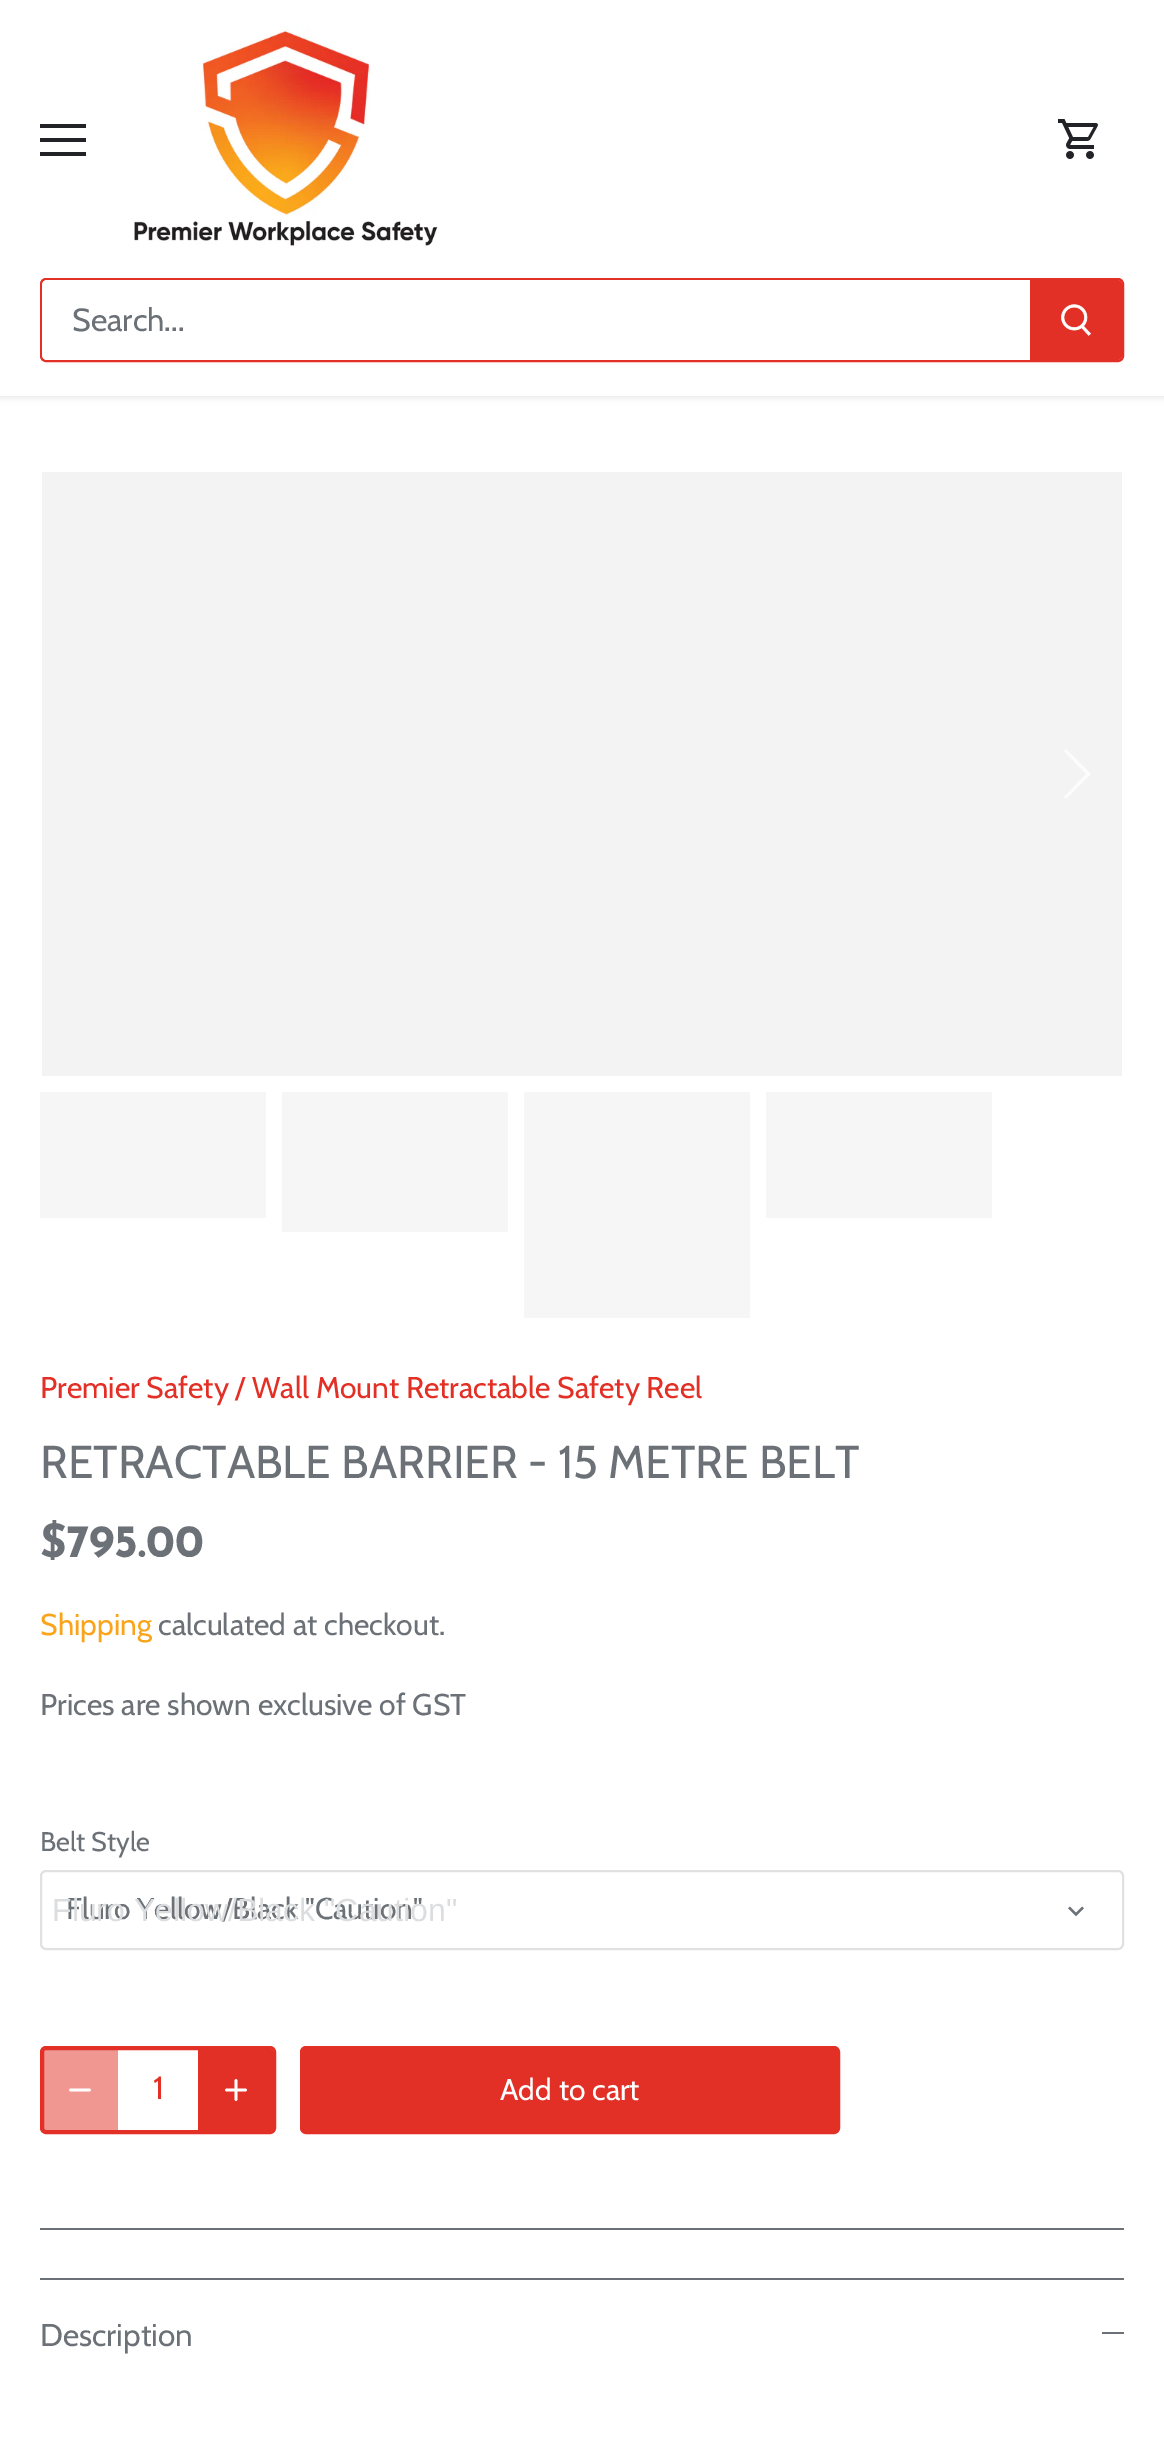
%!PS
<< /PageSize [1164 2442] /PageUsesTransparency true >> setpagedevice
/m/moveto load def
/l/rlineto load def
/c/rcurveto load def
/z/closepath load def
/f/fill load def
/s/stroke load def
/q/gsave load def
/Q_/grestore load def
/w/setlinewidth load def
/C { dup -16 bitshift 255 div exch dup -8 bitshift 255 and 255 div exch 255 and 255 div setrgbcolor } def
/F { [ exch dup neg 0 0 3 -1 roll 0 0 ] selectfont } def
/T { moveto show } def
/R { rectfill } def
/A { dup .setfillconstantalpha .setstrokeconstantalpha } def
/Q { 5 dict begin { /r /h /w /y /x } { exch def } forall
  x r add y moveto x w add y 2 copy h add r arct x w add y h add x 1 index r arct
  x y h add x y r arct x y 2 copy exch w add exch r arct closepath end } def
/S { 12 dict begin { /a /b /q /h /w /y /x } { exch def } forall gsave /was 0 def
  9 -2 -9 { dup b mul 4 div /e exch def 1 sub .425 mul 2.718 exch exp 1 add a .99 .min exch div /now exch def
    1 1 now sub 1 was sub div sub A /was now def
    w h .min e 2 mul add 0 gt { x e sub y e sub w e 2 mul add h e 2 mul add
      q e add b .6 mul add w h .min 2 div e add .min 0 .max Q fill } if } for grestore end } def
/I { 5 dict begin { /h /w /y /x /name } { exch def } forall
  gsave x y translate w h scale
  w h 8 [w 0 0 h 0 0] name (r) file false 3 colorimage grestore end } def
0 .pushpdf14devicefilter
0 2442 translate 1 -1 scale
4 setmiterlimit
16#FFFFFF C
0 0 1164 2442 R
16#000000 C
-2 -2 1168 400 0 3 .08 S
16#FFFFFF C
0 0 1164 396 R
16#212326 C
40 124 46 4 R
40 138 46 4 R
40 152 46 4 R
(1.rgb) 134 26 304 221 I
(2.rgb) 1058 119 40 40 I
16#E23026 C
2 w
41 279 1082 82 5 Q s
16#FFFFFF C
48 280 m 984 0 l 0 80 l -984 0 l -3.5 0 -6 -2.5 -6 -6 c 0 -68 l 0 -3.5 2.5 -6 6 -6 c z f
/Cabin-Regular 32 F
16#6B7177 C
(Search...) 72 331 T
16#E23026 C
1030 280 m 88 0 l 2 0 4 2 4 4 c 0 72 l 0 2 -2 4 -4 4 c -88 0 l z f
(3.rgb) 1061 304 30 32 I
16#F3F3F3 C
42 472 1080 604 R
16#FCFCFC C
1066 749 m -2 2 l 22 23 l -22 23 l 2 2 l 25 -25 l z f
16#F6F6F6 C
40 1092 226 126 R
282 1092 226 140 R
524 1092 226 226 R
766 1092 226 126 R
/Cabin-Regular 30 F
16#E23026 C
(Premier Safety / Wall Mount Retractable Safety Reel) 40 1398 T
/Cabin-Regular 46 F
16#6B7177 C
(RETRACTABLE BARRIER - 15 METRE BELT) 40 1478 T
/JosefinSans-Bold 46 F
($795.00) 40 1557 T
/Cabin-Regular 30 F
16#F9A41B C
(Shipping) 40 1635 T
16#6B7177 C
(calculated at checkout.) 158 1635 T
(Prices are shown exclusive of GST) 40 1715 T
/Cabin-Regular 27 F
(Belt Style) 40 1851 T
16#E0E1E2 C
41 1871 1082 78 5 Q s
/Cabin-Regular 30 F
16#6B7177 C
(Fluro Yellow/Black "Caution") 66 1919 T
/LiberationSans-Regular 32 F
16#DCDDDF C
(Fluro Yellow/Black "Caution") 52 1921 T
(4.rgb) 1068 1906 16 11 I
16#E23026 C
43 2049 230 82 3 Q s
41 2047 234 86 5 Q s
0.5 A
48 2048 m 70 0 l 0 84 l -70 0 l -3.5 0 -6 -2.5 -6 -6 c 0 -72 l 0 -3.5 2.5 -6 6 -6 c z f
1 A
16#FFFFFF C
2.7 w
1 setlinecap
1 setlinejoin
70.5 2090 m 19 0 l s
/Cabin-Regular 32 F
16#E23026 C
(1) 153 2099 T
198 2048 m 70 0 l 3.5 0 6 2.5 6 6 c 0 72 l 0 3.5 -2.5 6 -6 6 c -70 0 l z f
16#FFFFFF C
236 2080.5 m 0 19 l 226.5 2090 m 19 0 l s
16#E23026 C
302 2048 536 84 4 Q q f Q_
4 w
0 setlinecap
0 setlinejoin
s
/Cabin-Regular 30 F
16#FFFFFF C
(Add to cart) 500 2100 T
16#E23026 C
562 2080 m 5 -5 13 -5 18 0 c s
16#6B7177 C
40 2228 1084 2 R
40 2278 1084 2 R
/Cabin-Regular 31.5 F
(Description) 40 2346 T
1102 2332 22 2 R
.poppdf14devicefilter showpage
